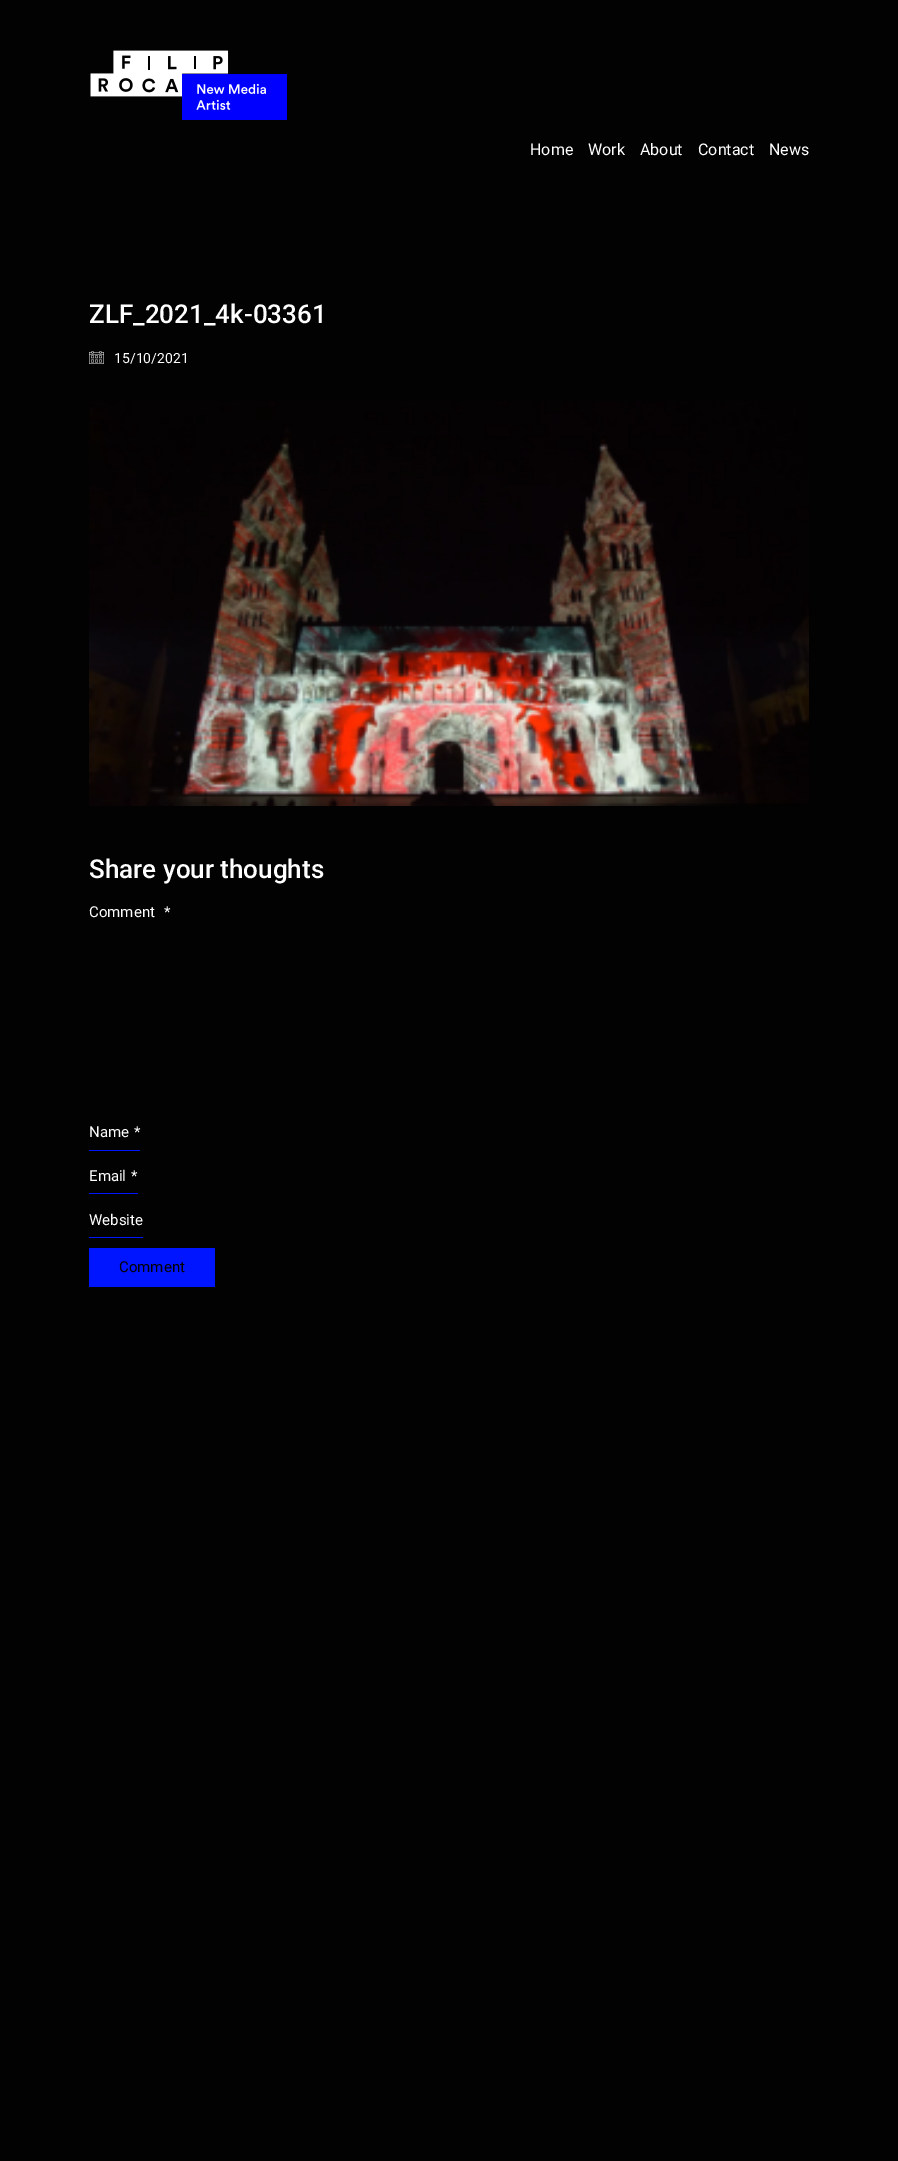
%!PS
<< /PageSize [898 2161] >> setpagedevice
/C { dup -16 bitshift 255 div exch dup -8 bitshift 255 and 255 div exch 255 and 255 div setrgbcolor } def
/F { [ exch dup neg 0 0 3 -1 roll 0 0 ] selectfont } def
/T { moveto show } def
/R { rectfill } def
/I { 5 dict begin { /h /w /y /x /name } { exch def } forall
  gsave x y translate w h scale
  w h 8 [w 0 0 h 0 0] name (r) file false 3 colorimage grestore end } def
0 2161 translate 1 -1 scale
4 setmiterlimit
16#020202 C
0 0 898 2161 R
(1.rgb) 90 50 197 70 I
/Roboto-Regular 16 F
16#FFFFFF C
(Home) 530 155 T
(Work) 588 155 T
(About) 640 155 T
(Contact) 698 155 T
(News) 769 155 T
/Roboto-Medium 26 F
(ZLF_2021_4k-03361) 89 323 T
(2.rgb) 89 351 15 13 I
/Roboto-Regular 14 F
(15/10/2021) 114 363 T
(3.rgb) 89 401 720 405 I
/Roboto-Medium 26 F
(Share your thoughts) 89 878 T
/Roboto-Regular 15 F
(Comment) 89 917 T
(*) 164 917 T
16#0015FF C
89 1150 51 1 R
16#FFFFFF C
(Name) 89 1137 T
(*) 134 1137 T
16#0015FF C
89 1193 49 1 R
16#FFFFFF C
(Email) 89 1181 T
(*) 131 1181 T
16#0015FF C
89 1237 54 1 R
16#FFFFFF C
(Website) 89 1225 T
16#0015FF C
89 1248 126 39 R
16#020202 C
(Comment) 119 1272 T
showpage
